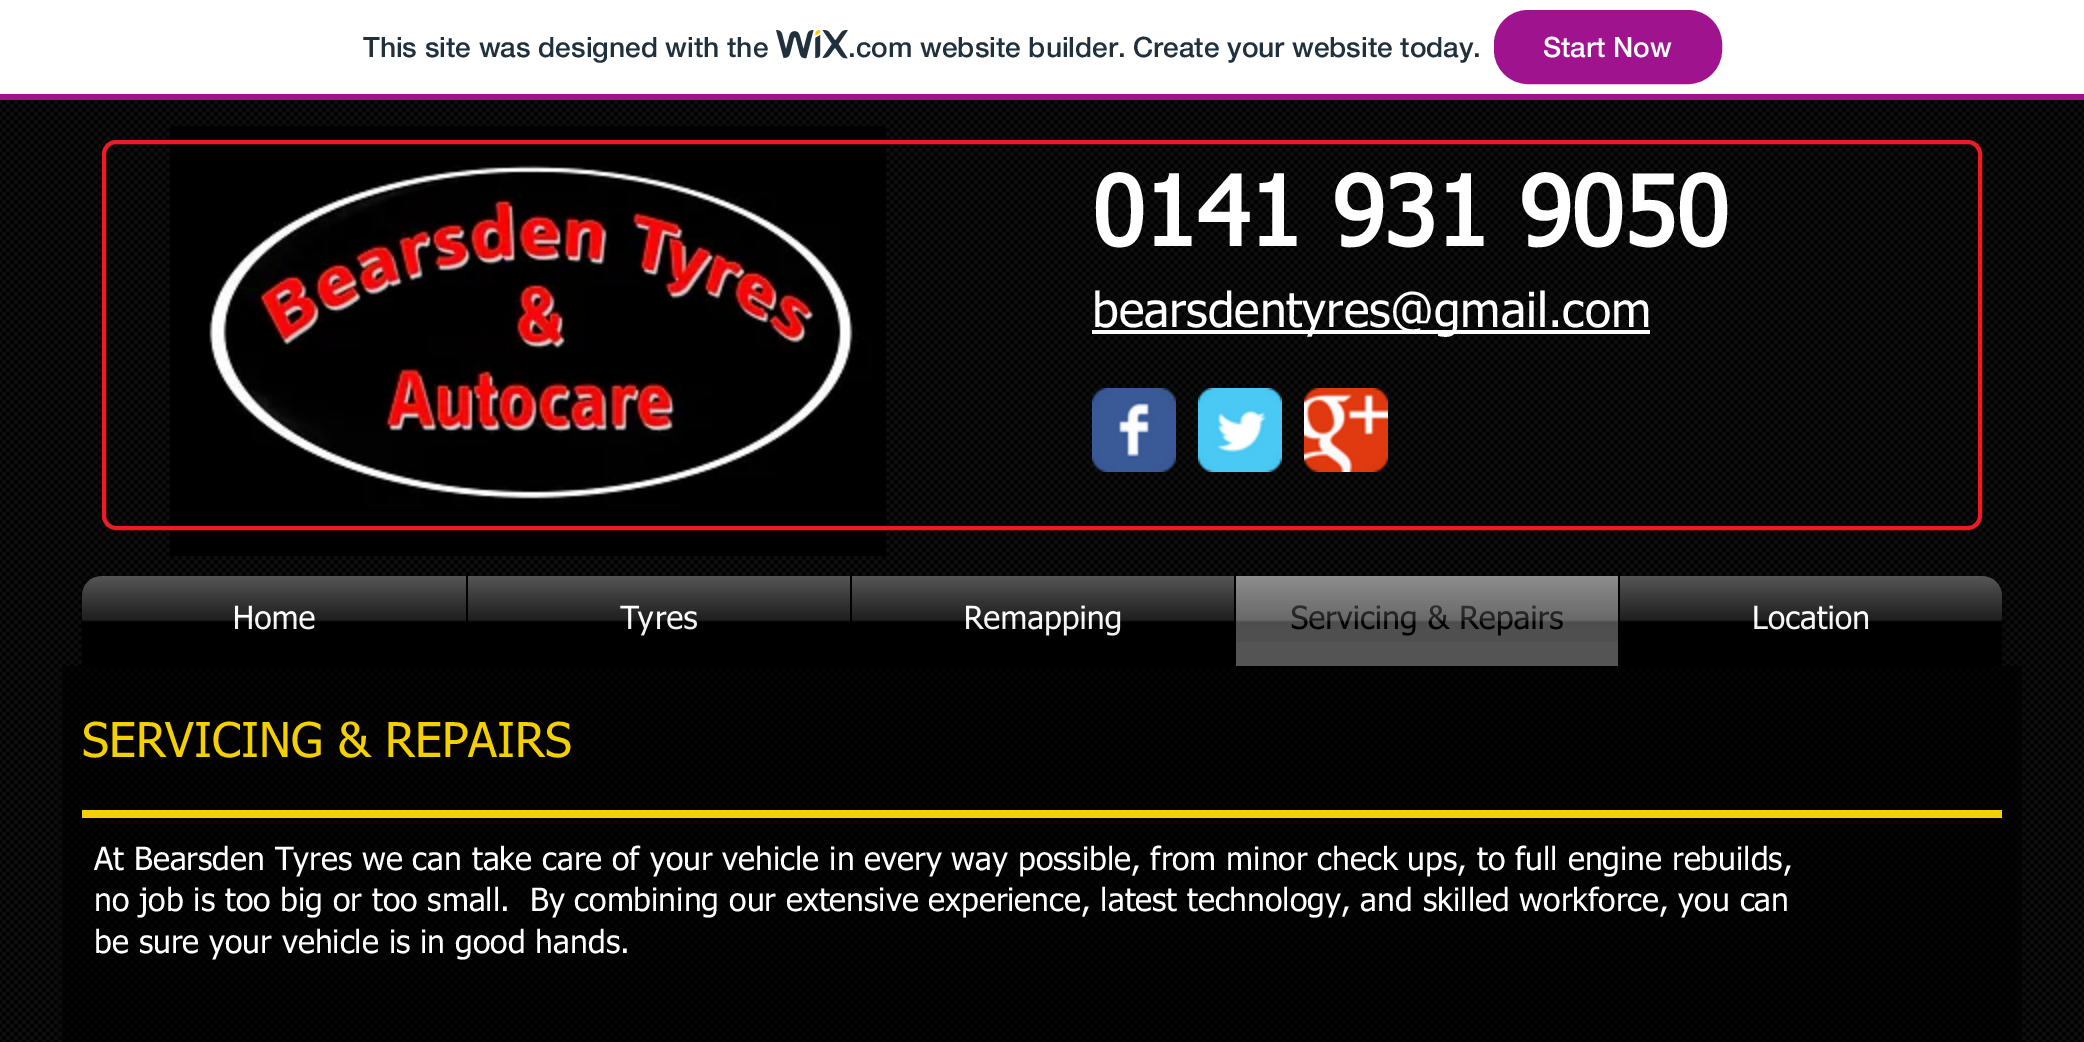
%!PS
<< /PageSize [2084 1042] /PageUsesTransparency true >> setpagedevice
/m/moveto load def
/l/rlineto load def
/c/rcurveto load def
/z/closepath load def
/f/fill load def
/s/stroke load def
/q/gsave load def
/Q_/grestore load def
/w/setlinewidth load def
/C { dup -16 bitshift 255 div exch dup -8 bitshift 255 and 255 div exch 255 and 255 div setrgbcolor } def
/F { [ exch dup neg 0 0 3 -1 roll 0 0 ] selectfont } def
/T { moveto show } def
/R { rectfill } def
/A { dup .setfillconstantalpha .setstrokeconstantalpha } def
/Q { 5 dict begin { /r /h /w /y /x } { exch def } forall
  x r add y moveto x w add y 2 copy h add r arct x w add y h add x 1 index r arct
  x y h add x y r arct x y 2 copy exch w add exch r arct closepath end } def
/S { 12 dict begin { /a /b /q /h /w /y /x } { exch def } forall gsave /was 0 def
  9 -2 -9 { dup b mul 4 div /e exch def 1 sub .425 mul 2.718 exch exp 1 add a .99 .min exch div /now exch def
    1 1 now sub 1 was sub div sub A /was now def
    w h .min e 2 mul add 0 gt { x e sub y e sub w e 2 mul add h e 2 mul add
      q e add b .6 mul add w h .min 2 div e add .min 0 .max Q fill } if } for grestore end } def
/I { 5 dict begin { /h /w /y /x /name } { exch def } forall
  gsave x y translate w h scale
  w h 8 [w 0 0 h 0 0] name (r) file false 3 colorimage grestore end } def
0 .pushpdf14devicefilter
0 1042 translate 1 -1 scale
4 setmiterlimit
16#FFFFFF C
0 0 2084 1042 R
16#A0138E C
0 94 2084 6 R
/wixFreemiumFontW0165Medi-Medium 28 F
16#20303C C
(This site was designed with the) 363 57 T
(1.rgb) 776 30 72 29 I
(.com website builder. Create your website today.) 848 57 T
16#A0138E C
1495 11 226 72 33 Q q f Q_
2 w
s
16#FFFFFF C
(Start Now) 1543 57 T
(2.rgb) 0 100 2084 942 I
(3.rgb) 170 126 716 430 I
16#ED1C24 C
4 w
104 142 1876 386 12 Q s
/tahoma-Bold 96 F
16#FFFFFF C
(0141 931 9050) 1092 246 T
1092 330 558 4 R
/tahoma-Regular 48 F
(bearsdentyres@gmail.com) 1092 327 T
(4.rgb) 1092 388 84 84 I
(5.rgb) 1198 388 84 84 I
(6.rgb) 1304 388 84 84 I
16#000000 C
82 578 1920 90 20 4 .6 S
(7.rgb) 82 576 1920 20 I
102 576 m 364 0 l 0 90 l -384 0 l 0 -70 l 0 -11 9 -20 20 -20 c z f
/tahoma-Regular 32 F
16#FFFFFF C
(Home) 233 629 T
(8.rgb) 82 576 384 54 I
16#000000 C
466 576 770 90 R
16#FFFFFF C
(Tyres) 620 629 T
(9.rgb) 468 576 382 60 I
(Remapping) 964 629 T
(10.rgb) 852 576 382 60 I
16#545454 C
1236 576 382 90 R
16#000000 C
(Servicing & Repairs) 1291 629 T
(11.rgb) 1236 576 382 66 I
1618 576 m 364 0 l 11 0 20 9 20 20 c 0 70 l -384 0 l z f
16#FFFFFF C
(Location) 1752 629 T
(12.rgb) 1620 576 382 54 I
0.7 A
16#000000 C
62 666 1960 376 R
/tahoma-Regular 48 F
1 A
16#F4D000 C
(SERVICING & REPAIRS) 82 757 T
82 810 1920 8 R
/tahoma-Regular 32 F
16#FFFFFF C
(At Bearsden Tyres we can take care of your vehicle in every way possible, from minor check ups, to full engine rebuilds,) 94 870 T
(no job is too big or too small.  By combining our extensive experience, latest technology, and skilled workforce, you can) 94 911 T
(be sure your vehicle is in good hands.) 94 953 T
.poppdf14devicefilter showpage
